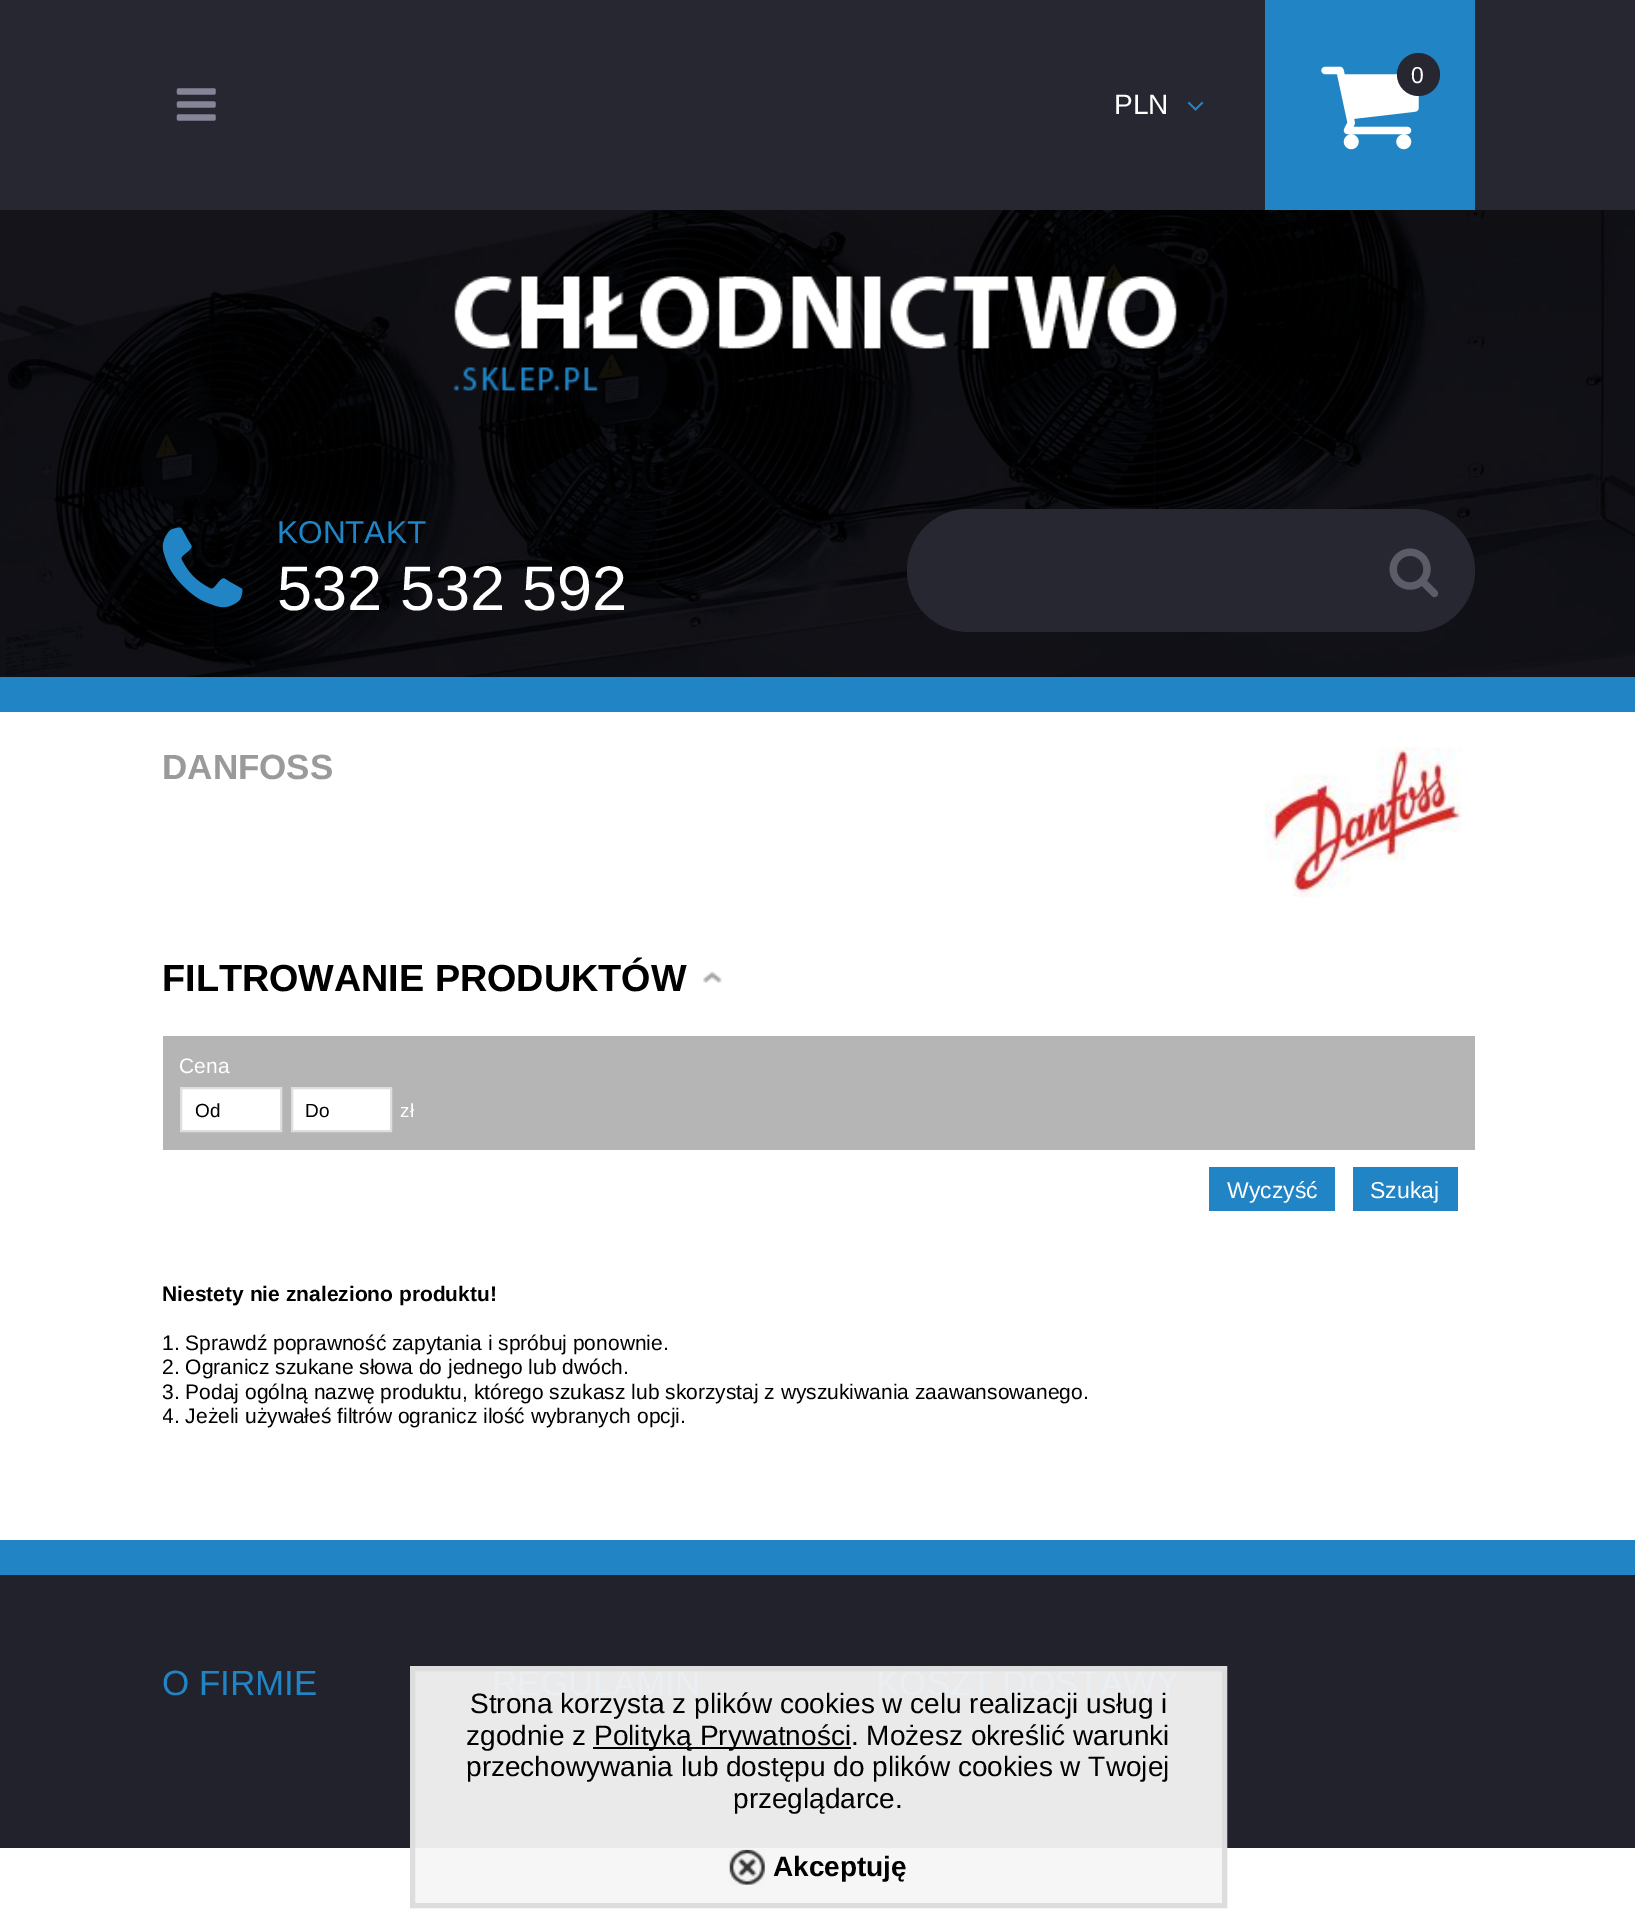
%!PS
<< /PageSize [1635 1924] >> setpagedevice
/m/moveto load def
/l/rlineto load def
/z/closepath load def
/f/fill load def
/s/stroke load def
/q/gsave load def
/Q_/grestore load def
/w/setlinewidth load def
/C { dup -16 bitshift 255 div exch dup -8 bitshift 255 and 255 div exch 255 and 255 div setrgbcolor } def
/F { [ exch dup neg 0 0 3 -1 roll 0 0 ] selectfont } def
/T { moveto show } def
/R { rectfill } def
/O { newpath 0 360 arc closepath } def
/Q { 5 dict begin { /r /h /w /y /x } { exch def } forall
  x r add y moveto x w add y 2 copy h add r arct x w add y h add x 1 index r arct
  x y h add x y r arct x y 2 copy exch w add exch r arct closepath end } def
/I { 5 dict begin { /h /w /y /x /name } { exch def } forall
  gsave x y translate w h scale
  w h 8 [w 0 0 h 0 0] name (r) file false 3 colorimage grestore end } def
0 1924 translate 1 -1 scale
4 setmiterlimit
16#FFFFFF C
0 0 1635 1924 R
16#F6F6F6 C
415 1848 807 55 R
16#272732 C
0 0 1635 210 R
16#2185C5 C
1265 0 210 210 R
(1.rgb) 1321 66 98 84 I
16#272732 C
1418.5 74.5 21.5 O f
/LiberationSans-Regular 23 F
16#FFFFFF C
(0) 1411 83 T
(2.rgb) 176 88 40 33 I
/LiberationSans-Regular 28 F
(PLN) 1114 114 T
(3.rgb) 1187 101 17 10 I
(4.rgb) 0 210 1635 467 I
16#2185C5 C
0 677 1635 35 R
(5.rgb) 453 276 724 115 I
(6.rgb) 162 527 81 81 I
/LiberationSans-Regular 31.5 F
(KONTAKT) 277 543 T
/LiberationSans-Regular 63 F
16#FFFFFF C
(532 532 592) 277 610 T
16#272732 C
907 509 568 123 61.5 Q f
(7.rgb) 1389 548 50 50 I
/LiberationSans-Bold 35 F
16#9A9A9A C
(DANFOSS) 162 779 T
(8.rgb) 1265 747 197 151 I
/LiberationSans-Bold 37.75 F
16#000000 C
(FILTROWANIE PRODUKTÓW) 162 991 T
(9.rgb) 703 971 19 12 I
16#B5B5B5 C
163 1036 1312 114 R
/LiberationSans-Regular 21 F
16#FFFFFF C
(Cena) 179 1073 T
181 1088 m 100 0 l 0 43 l -100 0 l z q f Q_
16#DEDEDE C
2 w
s
/LiberationSans-Regular 19 F
16#000000 C
(Od) 195 1117 T
16#FFFFFF C
292 1088 m 99 0 l 0 43 l -99 0 l z q f Q_
16#DEDEDE C
s
16#000000 C
(Do) 305 1117 T
16#FFFFFF C
(zł) 400 1117 T
16#2185C5 C
1209 1167 126 44 R
/LiberationSans-Regular 23 F
16#FFFFFF C
(Wyczyść) 1227 1198 T
16#2185C5 C
1353 1167 105 44 R
16#FFFFFF C
(Szukaj) 1370 1198 T
/LiberationSans-Bold 21 F
16#000000 C
(Niestety nie znaleziono produktu!) 162 1301 T
/LiberationSans-Regular 21 F
(1. Sprawdź poprawność zapytania i spróbuj ponownie.) 162 1350 T
(2. Ogranicz szukane słowa do jednego lub dwóch.) 162 1374 T
(3. Podaj ogólną nazwę produktu, którego szukasz lub skorzystaj z wyszukiwania zaawansowanego.) 162 1399 T
q
163 747 1312 723 rectclip
(4. Jeżeli używałeś filtrów ogranicz ilość wybranych opcji.) 162 1423 T
Q_
16#22222C C
0 1575 1635 273 R
16#EAEAEB C
415 1671 807 177 R
16#2185C5 C
0 1540 1635 35 R
/LiberationSans-Regular 35 F
(O FIRMIE) 162 1695 T
16#EAEFF3 C
(REGULAMIN) 492 1695 T
(KOSZT DOSTAWY) 876 1695 T
16#DDDDDD C
5 w
412.5 1668.5 812 237 rectstroke
/LiberationSans-Regular 28 F
16#000000 C
(Strona korzysta z plików cookies w celu realizacji usług i) 470 1713 T
(zgodnie z) 466 1745 T
593 1747 258 2 R
(Polityką Prywatności. Możesz określić warunki) 594 1745 T
(przechowywania lub dostępu do plików cookies w Twojej) 466 1776 T
(przeglądarce.) 733 1808 T
(10.rgb) 729 1849 36 36 I
/LiberationSans-Bold 28 F
(Akceptuję) 773 1876 T
showpage
